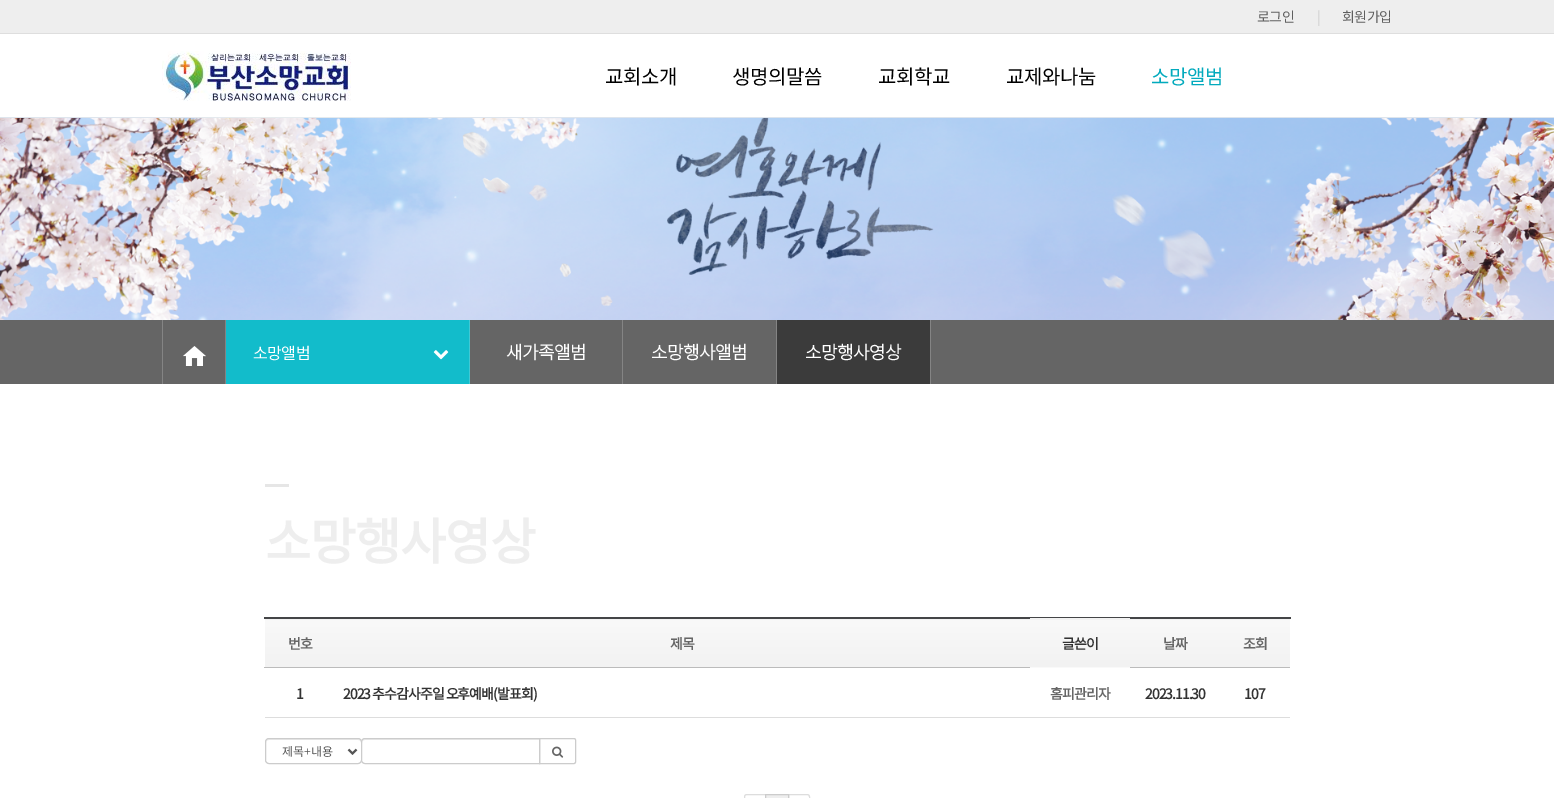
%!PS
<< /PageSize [1554 798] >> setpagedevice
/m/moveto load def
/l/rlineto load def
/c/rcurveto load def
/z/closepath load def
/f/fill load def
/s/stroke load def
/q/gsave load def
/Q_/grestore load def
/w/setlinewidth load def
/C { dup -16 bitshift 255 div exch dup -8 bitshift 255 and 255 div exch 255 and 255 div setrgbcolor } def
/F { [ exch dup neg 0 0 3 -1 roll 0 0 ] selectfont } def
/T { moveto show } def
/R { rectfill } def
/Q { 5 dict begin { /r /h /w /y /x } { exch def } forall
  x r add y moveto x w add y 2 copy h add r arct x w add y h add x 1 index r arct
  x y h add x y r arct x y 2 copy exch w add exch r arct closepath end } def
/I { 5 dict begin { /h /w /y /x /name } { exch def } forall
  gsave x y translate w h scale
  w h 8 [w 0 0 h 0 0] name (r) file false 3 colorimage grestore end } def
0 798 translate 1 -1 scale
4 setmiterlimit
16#FFFFFF C
0 0 1554 798 R
16#EEEEEE C
0 0 1554 33 R
16#DEDEDE C
0 33 1554 1 R
/NotoSansKR-Regular 14 F
16#5F5F5F C
1257 22 m -.5 0 (로그인) ashow
16#CACACA C
1317 22 m -.5 0 (|) ashow
16#5F5F5F C
1342 22 m -.5 0 (회원가입) ashow
16#DEE5ED C
0 117 1554 1 R
(1.rgb) 162 51 189 50 I
(2.rgb) 189 117 256 1 I
/NotoSansKR-Regular 20 F
16#000000 C
605 84 m -.5 0 (교회소개) ashow
732 84 m -.5 0 (생명의말씀) ashow
878 84 m -.5 0 (교회학교) ashow
1006 84 m -.5 0 (교제와나눔) ashow
16#02AABD C
1151 84 m -.5 0 (소망앨범) ashow
(3.rgb) 0 118 1554 202 I
16#656565 C
0 320 1554 64 R
16#848484 C
225 320 1 64 R
162 320 1 64 R
(4.rgb) 183 346 23 20 I
16#12BCCB C
226 320 243 64 R
16#41C9D5 C
469 320 1 64 R
/NotoSansKR-Regular 16 F
16#FFFFFF C
253 359 m -.5 0 (소망앨범) ashow
(5.rgb) 433 350 16 10 I
16#848484 C
622 320 1 64 R
/NotoSansKR-Bold 18 F
16#FFFFFF C
506 359 m -.5 0 (새가족앨범) ashow
16#848484 C
776 320 1 64 R
16#FFFFFF C
651 359 m -.5 0 (소망행사앨범) ashow
16#848484 C
930 320 1 64 R
16#3B3B3B C
777 320 153 64 R
16#FFFFFF C
805 359 m -.5 0 (소망행사영상) ashow
16#E6E6E6 C
265 484 24 3 R
/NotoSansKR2-Bold 50 F
16#EEEEEE C
265 560 m -1 0 (소망행사영상) ashow
16#DDDDDD C
265 717 1025 1 R
16#F2F2F2 C
265 619 765 1 R
q 265 620 m 70 0 l 0 47 l -70 0 l z clip newpath
<< /ShadingType 2 /ColorSpace /DeviceRGB /Coords [300 620 300 667] /Extend [true true] /Function << /FunctionType 2 /Domain [0 1] /C0 [.976 .976 .976] /C1 [.949 .949 .949] /N 1 >> >> shfill Q_
/NotoSansKR2-Bold 14 F
16#666666 C
288 649 m -1 0 (번호) ashow
q 335 620 m 695 0 l 0 47 l -695 0 l z clip newpath
<< /ShadingType 2 /ColorSpace /DeviceRGB /Coords [683 620 683 667] /Extend [true true] /Function << /FunctionType 2 /Domain [0 1] /C0 [.976 .976 .976] /C1 [.949 .949 .949] /N 1 >> >> shfill Q_
16#BBBBBB C
264 667 766 1 R
16#666666 C
670 649 m -1 0 (제목) ashow
16#444547 C
264 617 1027 2 R
16#F2F2F2 C
1030 618 100 2 R
q 1030 620 m 100 0 l 0 47 l -100 0 l z clip newpath
<< /ShadingType 2 /ColorSpace /DeviceRGB /Coords [1080 620 1080 667] /Extend [true true] /Function << /FunctionType 2 /Domain [0 1] /C0 [.976 .976 .976] /C1 [.949 .949 .949] /N 1 >> >> shfill Q_
16#BBBBBB C
1129 667 161 1 R
q 1030 667 m 100 0 l 0 1 l -100 0 l z clip newpath
<< /ShadingType 2 /ColorSpace /DeviceRGB /Coords [1080 667 1080 714] /Extend [true true] /Function << /FunctionType 2 /Domain [0 1] /C0 [.976 .976 .976] /C1 [.949 .949 .949] /N 1 >> >> shfill Q_
16#333333 C
1062 649 m -1 0 (글쓴이) ashow
16#F2F2F2 C
1130 619 160 1 R
q 1130 620 m 90 0 l 0 47 l -90 0 l z clip newpath
<< /ShadingType 2 /ColorSpace /DeviceRGB /Coords [1175 620 1175 667] /Extend [true true] /Function << /FunctionType 2 /Domain [0 1] /C0 [.976 .976 .976] /C1 [.949 .949 .949] /N 1 >> >> shfill Q_
16#666666 C
1163 649 m -1 0 (날짜) ashow
q 1220 620 m 70 0 l 0 47 l -70 0 l z clip newpath
<< /ShadingType 2 /ColorSpace /DeviceRGB /Coords [1255 620 1255 667] /Extend [true true] /Function << /FunctionType 2 /Domain [0 1] /C0 [.976 .976 .976] /C1 [.949 .949 .949] /N 1 >> >> shfill Q_
1243 649 m -1 0 (조회) ashow
16#333333 C
296 699 m -1 0 (1) ashow
343 699 m -1 0 (2023 추수감사주일 오후예배\(발표회\)) ashow
16#666666 C
1050 699 m -1 0 (홈피관리자) ashow
16#333333 C
1145 699 m -1 0 (2023.11.30) ashow
1244 699 m -1 0 (107) ashow
16#ECECEC C
269 740 m 89 0 l 2 0 3 1 3 3 c 0 -8 -15 -4 -18 -4 c -59 0 l -3 0 -18 -4 -18 4 c 0 -2 1 -3 3 -3 c z f
16#CCCCCC C
265.5 738.5 96 25 3.5 Q s
16#555555 C
2 w
348.5 749.5 m 4 4 l 4 -4 l s
/NotoSansKR-Regular 12 F
(제목+내용) 282 756 T
16#CCCCCC C
1 w
539.5 738.5 m 34.5 0 l 1 0 1.5 .5 1.5 1.5 c 0 22 l 0 1 -.5 1.5 -1.5 1.5 c -34.5 0 l z s
16#FFFFFF C
365 738 m 175 0 l 0 26 l -175 0 l -2 0 -4 -2 -4 -4 c 0 -18 l 0 -2 2 -4 4 -4 c z f
16#ECECEC C
365 740 m 174 0 l 0 -1 l -175 0 l -2 1 -2 2 -2 4 c 0 -2 1 -3 3 -3 c z f
16#CCCCCC C
365 738.5 m 174.5 0 l 0 25 l -174.5 0 l -2 0 -3.5 -1.5 -3.5 -3.5 c 0 -18 l 0 -2 1.5 -3.5 3.5 -3.5 c z s
(6.rgb) 552 746 12 12 I
16#DDDDDD C
747 794.5 m 18.5 0 l 0 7 l -18.5 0 l -1.5 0 -2.5 -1 -2.5 -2.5 c 0 -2 l 0 -1.5 1 -2.5 2.5 -2.5 c z s
788.5 794.5 m 18.5 0 l 1.5 0 2.5 1 2.5 2.5 c 0 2 l 0 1.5 -1 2.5 -2.5 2.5 c -18.5 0 l z s
16#EEEEEE C
765.5 794.5 m 23 0 l 0 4 l -23 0 l z q f Q_
16#CCCCCC C
s
showpage
